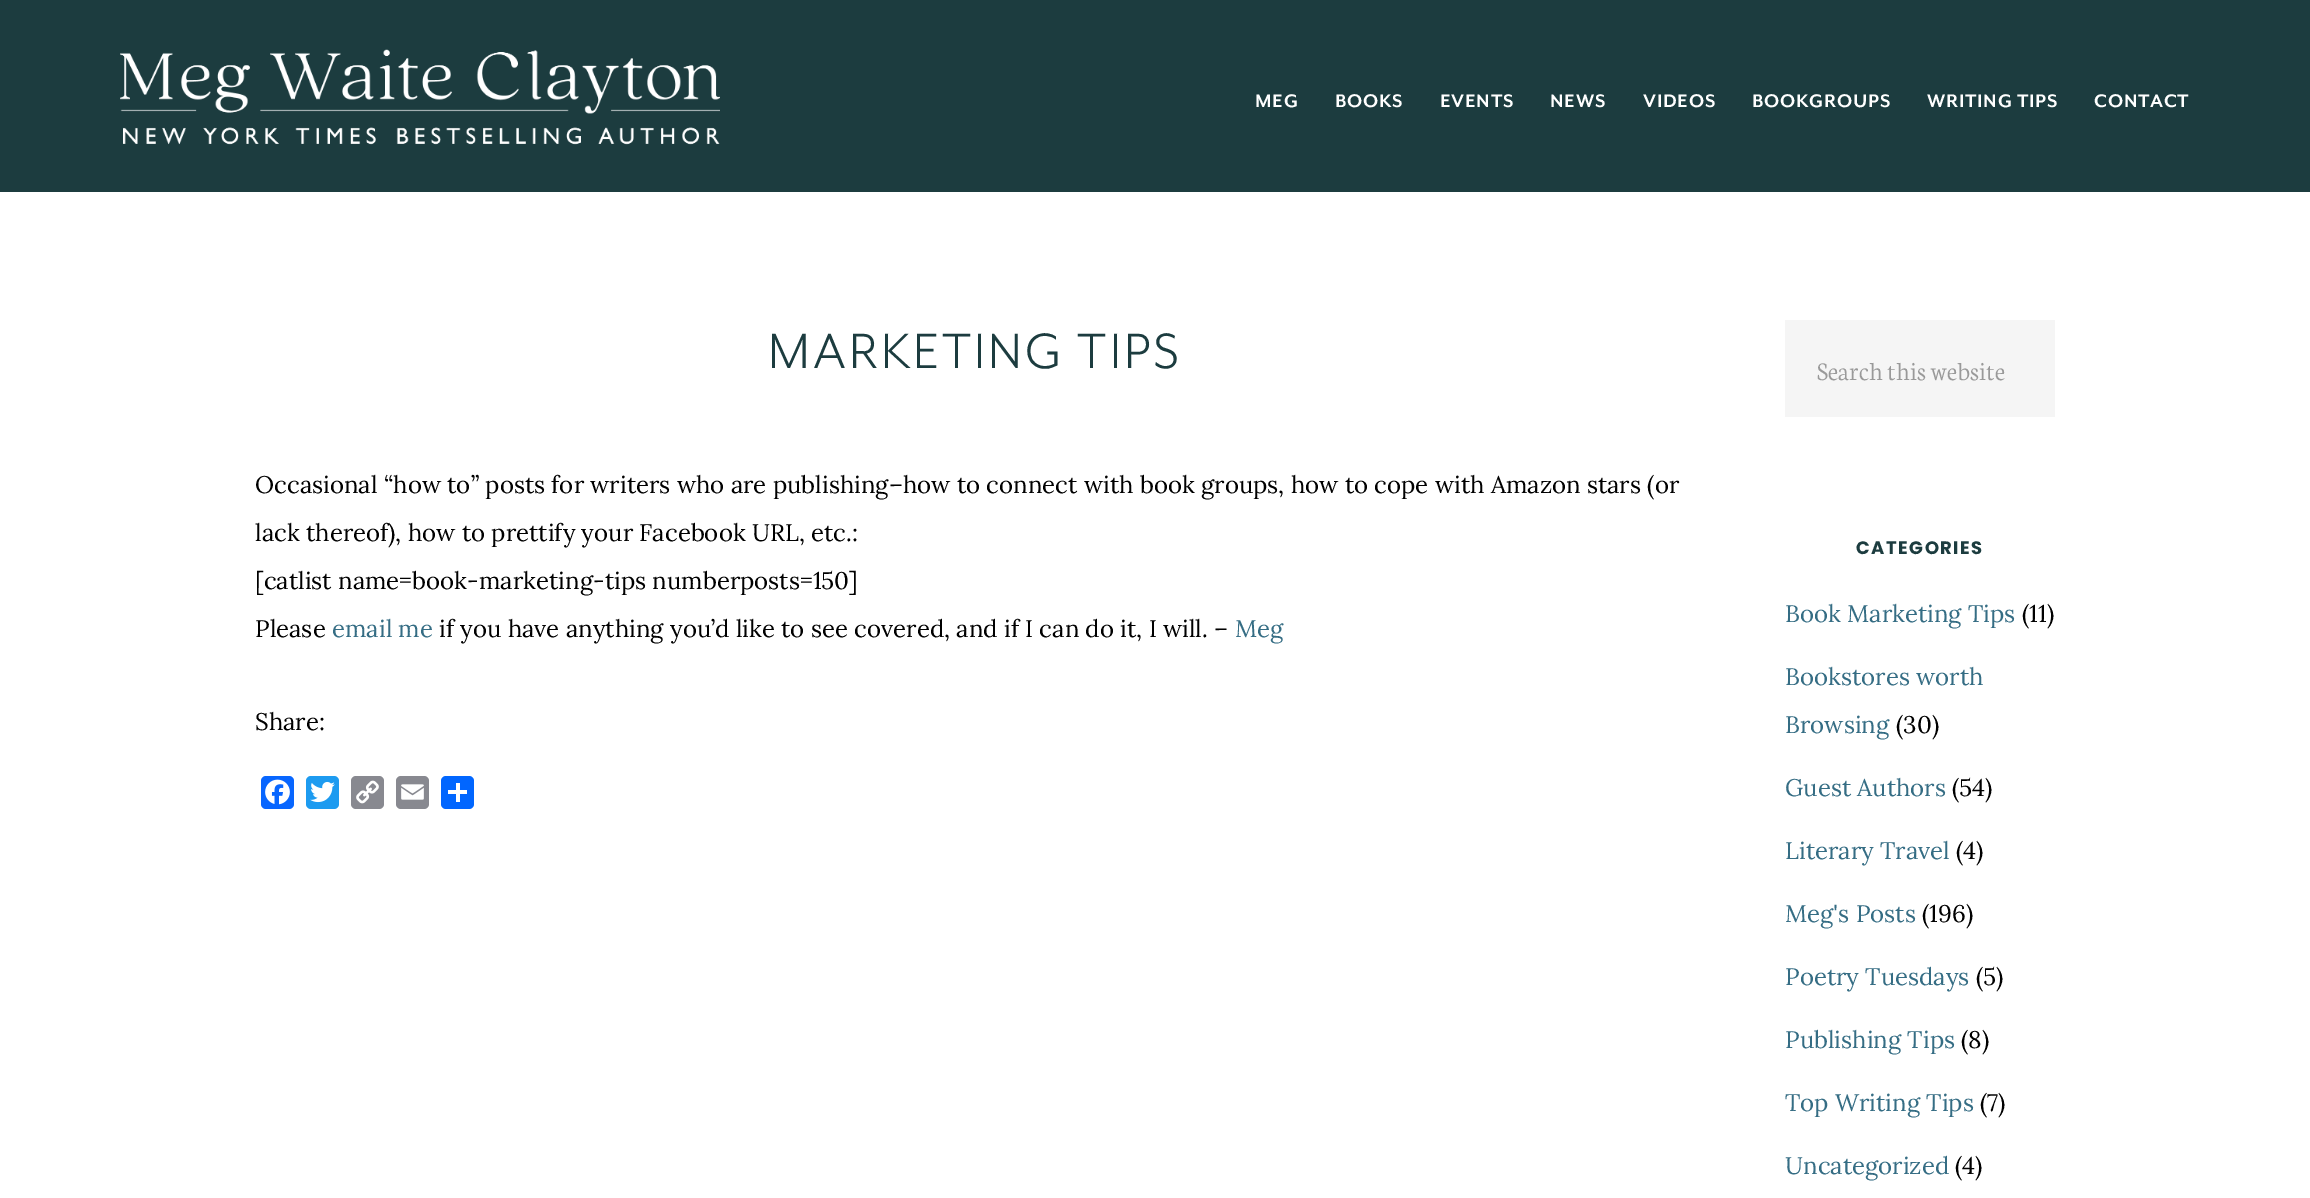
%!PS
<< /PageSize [2310 1198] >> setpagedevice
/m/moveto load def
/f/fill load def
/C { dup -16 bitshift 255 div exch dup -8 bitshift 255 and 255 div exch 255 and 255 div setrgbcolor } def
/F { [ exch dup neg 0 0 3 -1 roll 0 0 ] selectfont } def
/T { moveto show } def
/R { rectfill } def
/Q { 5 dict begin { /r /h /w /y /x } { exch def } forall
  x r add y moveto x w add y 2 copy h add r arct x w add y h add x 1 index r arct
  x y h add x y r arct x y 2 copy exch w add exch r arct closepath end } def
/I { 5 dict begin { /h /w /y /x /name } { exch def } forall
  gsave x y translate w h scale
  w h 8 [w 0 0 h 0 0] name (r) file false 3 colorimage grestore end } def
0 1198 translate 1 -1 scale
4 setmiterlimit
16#FFFFFF C
0 0 2310 1198 R
16#1C3C3F C
0 0 2310 192 R
(1.rgb) 120 49 600 96 I
/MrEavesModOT-Bold 21 F
16#FFFFFF C
1255 107 m .75 0 (MEG) ashow
1335 107 m .75 0 (BOOKS) ashow
1440 107 m .75 0 (EVENTS) ashow
1550 107 m .75 0 (NEWS) ashow
1643 107 m .75 0 (VIDEOS) ashow
1752 107 m .75 0 (BOOKGROUPS) ashow
1927 107 m .75 0 (WRITING TIPS) ashow
2094 107 m .75 0 (CONTACT) ashow
/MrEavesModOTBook-Regular 57 F
16#1C3C3F C
768 368 m 3 0 (MARKETING TIPS) ashow
/Lora-Regular 24 F
16#000000 C
(Occasional “how to” posts for writers who are publishing–how to connect with book groups, how to cope with Amazon stars \(or) 255 493 T
(lack thereof\), how to prettify your Facebook URL, etc.:) 255 541 T
([catlist name=book-marketing-tips numberposts=150]) 255 589 T
(Please) 255 637 T
16#356D84 C
(email me) 332 637 T
16#000000 C
(if you have anything you’d like to see covered, and if I can do it, I will. –) 439 637 T
16#356D84 C
(Meg) 1235 637 T
16#000000 C
(Share:) 255 730 T
16#0866FF C
261 776 33 33 5 Q f
(2.rgb) 265 779 25 26 I
16#1D9BF0 C
306 776 33 33 5 Q f
(3.rgb) 310 781 25 22 I
16#888990 C
351 776 33 33 5 Q f
(4.rgb) 356 780 23 24 I
396 776 33 33 5 Q f
(5.rgb) 401 784 23 16 I
16#0166FF C
441 776 33 33 5 Q f
16#FFFFFF C
456 783 4 19 R
448 790 19 4 R
16#F5F5F5 C
1785 320 270 97 R
/Neuton-Light 27 F
16#999999 C
(Search this website) 1817 380 T
/Poppins-Bold 18 F
16#1C3C3F C
1856 554 m 1.5 0 (CATEGORIES) ashow
/Lora-Regular 24 F
16#356D84 C
(Book Marketing Tips) 1785 622 T
16#000000 C
(\(11\)) 2022 622 T
16#356D84 C
(Bookstores worth) 1785 685 T
(Browsing) 1785 733 T
16#000000 C
(\(30\)) 1896 733 T
16#356D84 C
(Guest Authors) 1785 796 T
16#000000 C
(\(54\)) 1952 796 T
16#356D84 C
(Literary Travel) 1785 859 T
16#000000 C
(\(4\)) 1956 859 T
16#356D84 C
(Meg's Posts) 1785 922 T
16#000000 C
(\(196\)) 1922 922 T
16#356D84 C
(Poetry Tuesdays) 1785 985 T
16#000000 C
(\(5\)) 1976 985 T
16#356D84 C
(Publishing Tips) 1785 1048 T
16#000000 C
(\(8\)) 1961 1048 T
16#356D84 C
(Top Writing Tips) 1785 1111 T
16#000000 C
(\(7\)) 1980 1111 T
16#356D84 C
(Uncategorized) 1785 1174 T
16#000000 C
(\(4\)) 1955 1174 T
showpage
